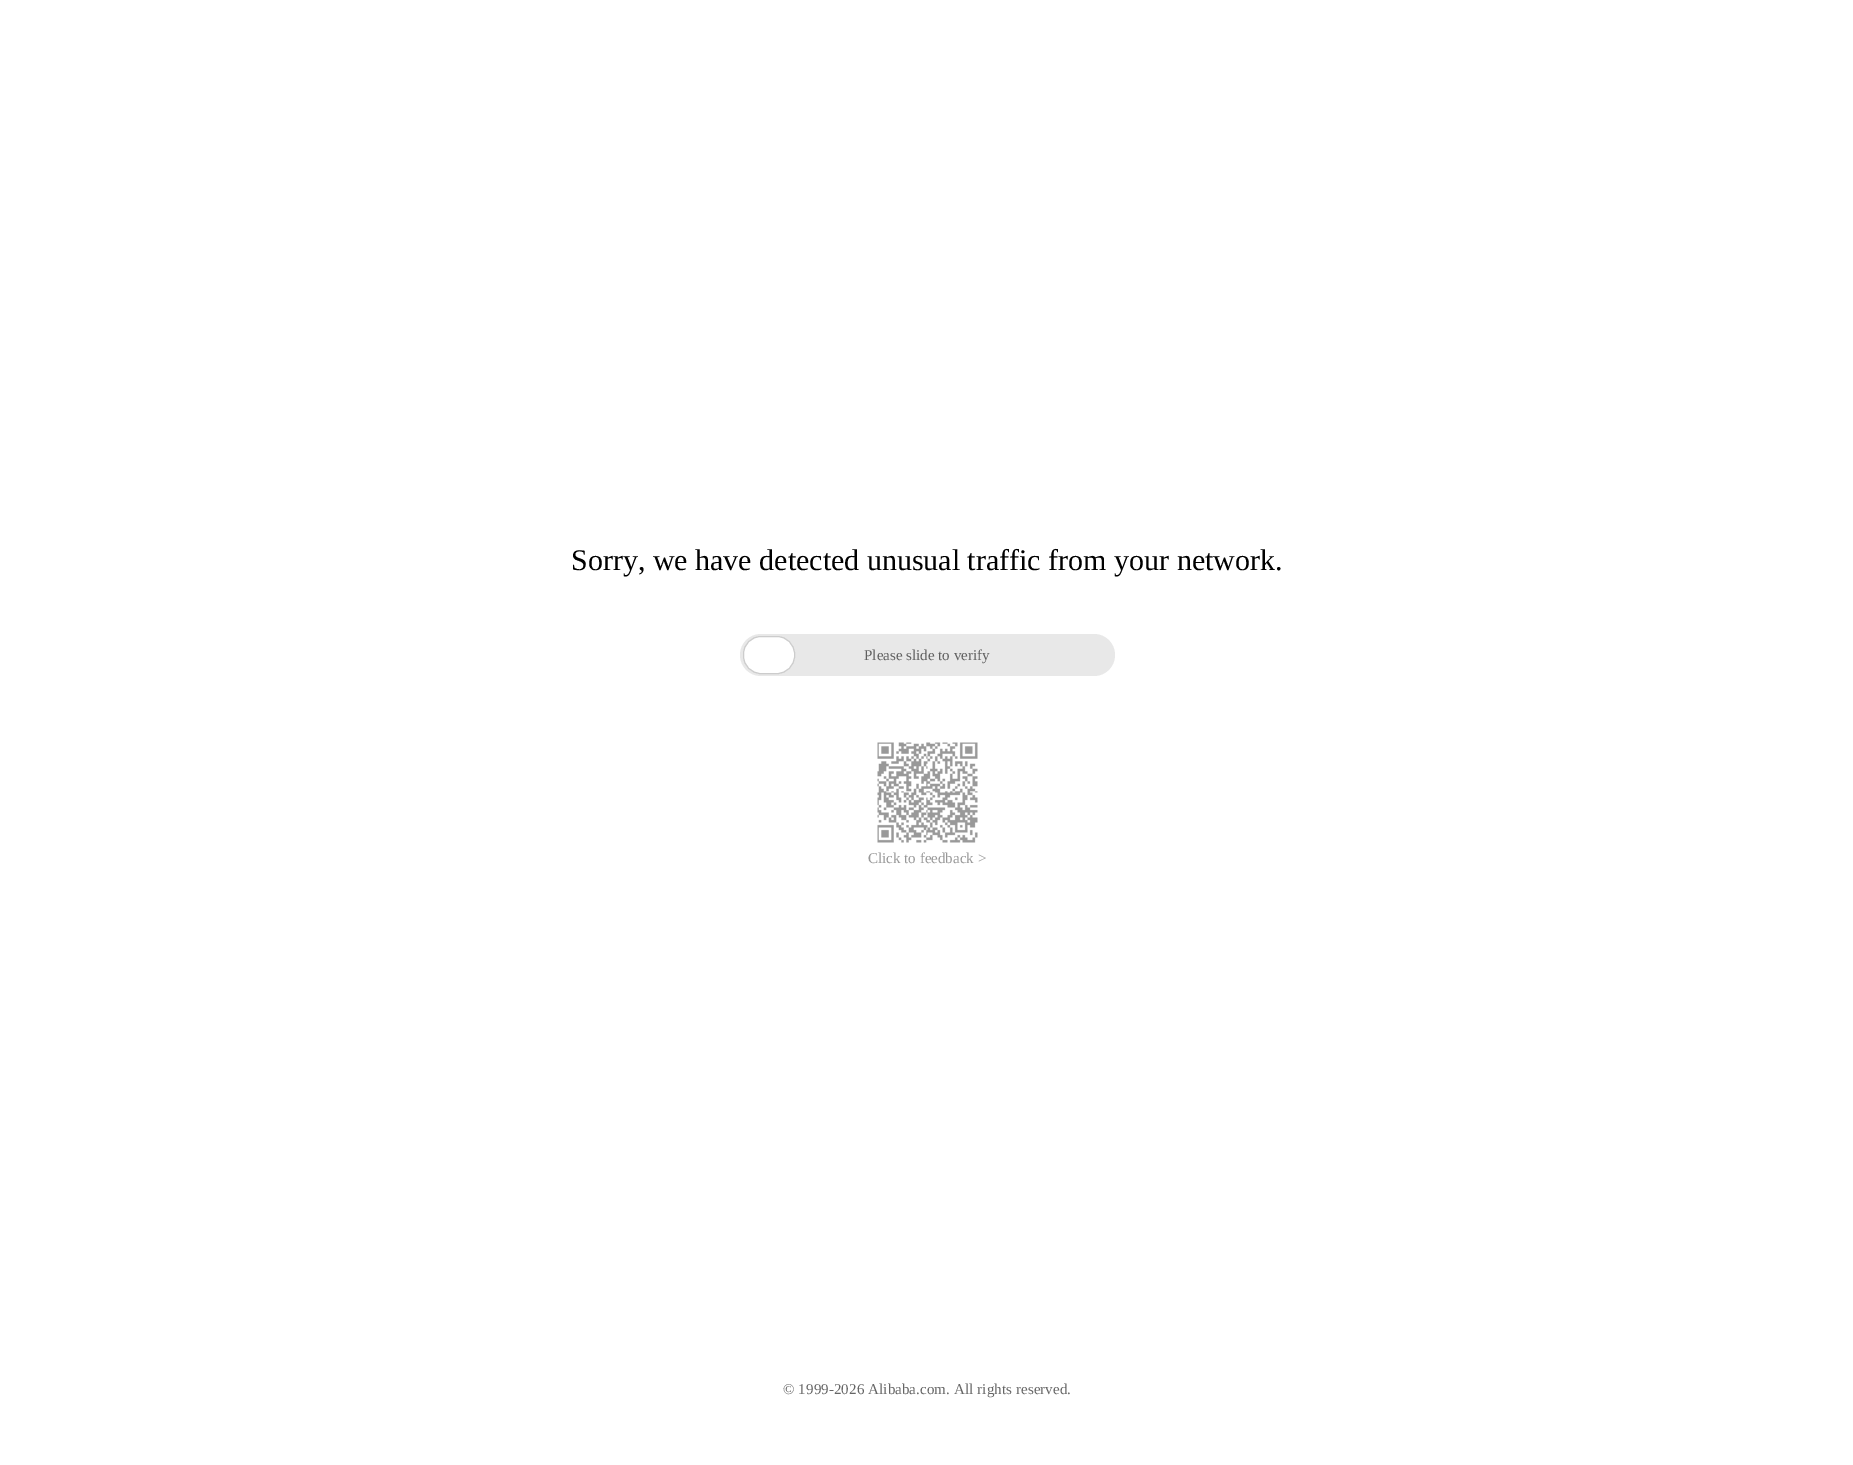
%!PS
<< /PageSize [1853 1465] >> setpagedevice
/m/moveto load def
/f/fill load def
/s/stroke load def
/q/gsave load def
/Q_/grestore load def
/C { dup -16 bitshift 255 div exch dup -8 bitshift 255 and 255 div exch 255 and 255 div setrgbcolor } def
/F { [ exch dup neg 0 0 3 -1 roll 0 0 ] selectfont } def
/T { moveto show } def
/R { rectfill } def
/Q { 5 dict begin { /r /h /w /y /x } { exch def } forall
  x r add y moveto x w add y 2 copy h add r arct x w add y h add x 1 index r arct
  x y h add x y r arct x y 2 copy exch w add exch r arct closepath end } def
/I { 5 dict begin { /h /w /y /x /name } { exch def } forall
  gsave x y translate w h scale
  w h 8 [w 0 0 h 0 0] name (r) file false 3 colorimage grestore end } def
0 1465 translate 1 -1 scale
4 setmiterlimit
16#FFFFFF C
0 0 1853 1465 R
/LiberationSerif-Regular 30 F
16#000000 C
(Sorry, we have detected unusual traffic from your network.) 571 570 T
16#E8E8E8 C
740 634 375 42 21 Q f
16#FFFFFF C
743.5 636.5 51 37 17.5 Q q f Q_
16#CCCCCC C
s
/LiberationSerif-Regular 15 F
16#5F5F5F C
(Please slide to verify) 864 660 T
(1.rgb) 877 742 101 101 I
16#999999 C
(Click to feedback >) 868 863 T
16#666666 C
783 1394 m .1 0 (© 1999-2026 Alibaba.com. All rights reserved.) ashow
showpage
